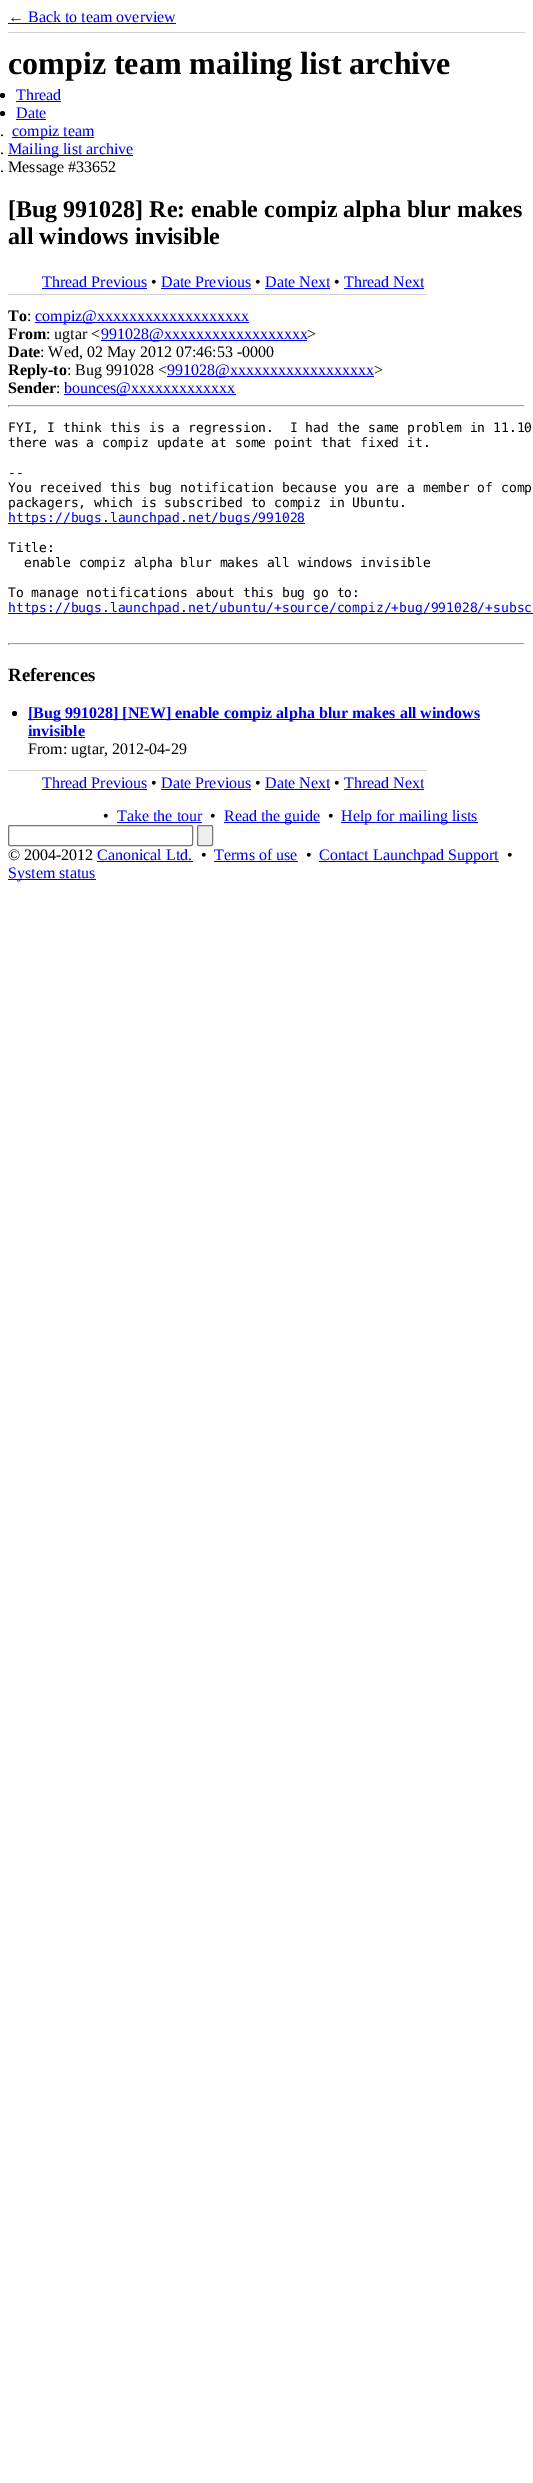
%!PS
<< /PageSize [533 2483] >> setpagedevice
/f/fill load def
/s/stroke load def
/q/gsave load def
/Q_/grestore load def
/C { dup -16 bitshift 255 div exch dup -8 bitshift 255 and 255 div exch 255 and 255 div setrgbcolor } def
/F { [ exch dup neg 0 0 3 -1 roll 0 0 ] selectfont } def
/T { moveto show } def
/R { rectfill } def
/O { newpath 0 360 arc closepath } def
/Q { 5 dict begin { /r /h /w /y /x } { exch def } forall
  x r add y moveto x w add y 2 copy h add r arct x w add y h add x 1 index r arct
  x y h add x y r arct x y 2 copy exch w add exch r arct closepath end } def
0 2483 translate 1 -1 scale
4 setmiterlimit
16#FFFFFF C
0 0 533 2483 R
16#D2D2D2 C
8 32 517 1 R
/LiberationSerif-Regular 16 F
16#0000EE C
(← Back to team overview) 8 22 T
8 23 168 1 R
/LiberationSerif-Bold 32 F
16#000000 C
(compiz team mailing list archive) 8 74 T
2.5 95.5 2.5 O f
/LiberationSerif-Regular 16 F
16#0000EE C
(Thread) 16 100 T
16 101 45 1 R
16#000000 C
2.5 113.5 2.5 O f
16#0000EE C
(Date) 16 118 T
16 119 30 1 R
16#000000 C
(.) 0 136 T
16#0000EE C
12 137 82 1 R
(compiz team) 12 136 T
16#000000 C
(.) 0 154 T
16#0000EE C
8 155 125 1 R
(Mailing list archive) 8 154 T
16#000000 C
(. Message #33652) 0 172 T
/LiberationSerif-Bold 24 F
([Bug 991028] Re: enable compiz alpha blur makes) 8 217 T
(all windows invisible) 8 244 T
16#D2D2D2 C
8 294 419 1 R
/LiberationSerif-Regular 16 F
16#0000EE C
(Thread Previous) 42 287 T
42 288 105 1 R
16#000000 C
(•) 151 287 T
16#0000EE C
(Date Previous) 161 287 T
161 288 90 1 R
16#000000 C
(•) 255 287 T
16#0000EE C
(Date Next) 265 287 T
265 288 65 1 R
16#000000 C
(•) 334 287 T
16#0000EE C
(Thread Next) 344 287 T
344 288 80 1 R
/LiberationSerif-Bold 16 F
16#000000 C
(To) 8 321 T
/LiberationSerif-Regular 16 F
(:) 27 321 T
16#0000EE C
35 322 214 1 R
(compiz@xxxxxxxxxxxxxxxxxxx) 35 321 T
/LiberationSerif-Bold 16 F
16#000000 C
(From) 8 339 T
/LiberationSerif-Regular 16 F
(: ugtar <) 46 339 T
16#0000EE C
101 340 206 1 R
(991028@xxxxxxxxxxxxxxxxxx) 101 339 T
16#000000 C
(>) 307 339 T
/LiberationSerif-Bold 16 F
(Date) 8 357 T
/LiberationSerif-Regular 16 F
(: Wed, 02 May 2012 07:46:53 -0000) 40 357 T
/LiberationSerif-Bold 16 F
(Reply-to) 8 375 T
/LiberationSerif-Regular 16 F
(: Bug 991028 <) 67 375 T
16#0000EE C
167 376 207 1 R
(991028@xxxxxxxxxxxxxxxxxx) 167 375 T
16#000000 C
(>) 374 375 T
/LiberationSerif-Bold 16 F
(Sender) 8 393 T
/LiberationSerif-Regular 16 F
(:) 56 393 T
16#0000EE C
64 394 172 1 R
(bounces@xxxxxxxxxxxxx) 64 393 T
16#9F9F9F C
8 405 517 1 R
16#EEEEEE C
524 405 1 2 R
8 406 517 1 R
16#9F9F9F C
8 405 1 2 R
/DejaVuSansMono-Regular 13 F
16#000000 C
(FYI, I think this is a regression.  I had the same problem in 11.10) 8 432 T
(there was a compiz update at some point that fixed it.) 8 447 T
(--) 8 477 T
(You received this bug notification because you are a member of comp) 8 492 T
(packagers, which is subscribed to compiz in Ubuntu.) 8 507 T
16#0000EE C
8 523 297 1 R
(https://bugs.launchpad.net/bugs/991028) 8 522 T
16#000000 C
(Title:) 8 552 T
(enable compiz alpha blur makes all windows invisible) 24 567 T
(To manage notifications about this bug go to:) 8 597 T
16#0000EE C
8 613 525 1 R
(https://bugs.launchpad.net/ubuntu/+source/compiz/+bug/991028/+subsc) 8 612 T
16#9F9F9F C
8 643 517 1 R
16#EEEEEE C
524 643 1 2 R
8 644 517 1 R
16#9F9F9F C
8 643 1 2 R
/LiberationSerif-Bold 18.75 F
16#000000 C
(References) 8 681 T
14.5 713.5 2.5 O f
16#0000EE C
28 719 452 1 R
/LiberationSerif-Bold 16 F
([Bug 991028] [NEW] enable compiz alpha blur makes all windows) 28 718 T
(invisible) 28 736 T
28 737 57 1 R
/LiberationSerif-Regular 16 F
16#000000 C
(From: ugtar, 2012-04-29) 28 754 T
16#D2D2D2 C
8 770 419 1 R
16#0000EE C
(Thread Previous) 42 788 T
42 789 105 1 R
16#000000 C
(•) 151 788 T
16#0000EE C
(Date Previous) 161 788 T
161 789 90 1 R
16#000000 C
(•) 255 788 T
16#0000EE C
(Date Next) 265 788 T
265 789 65 1 R
16#000000 C
(•) 334 788 T
16#0000EE C
(Thread Next) 344 788 T
344 789 80 1 R
16#000000 C
(•) 103 821 T
16#0000EE C
(Take the tour) 117 821 T
117 822 85 1 R
16#000000 C
(•) 210 821 T
16#0000EE C
224 822 96 1 R
(Read the guide) 224 821 T
16#000000 C
(•) 328 821 T
16#0000EE C
341 822 137 1 R
(Help for mailing lists) 341 821 T
16#767676 C
8.5 825.5 184 20 1.5 Q s
16#EFEFEF C
197.5 825.5 15 20 1.5 Q q f Q_
16#767676 C
s
16#000000 C
(© 2004-2012) 8 860 T
16#0000EE C
(Canonical Ltd.) 97 860 T
97 861 96 1 R
16#000000 C
(•) 201 860 T
16#0000EE C
(Terms of use) 214 860 T
214 861 84 1 R
16#000000 C
(•) 306 860 T
16#0000EE C
319 861 180 1 R
(Contact Launchpad Support) 319 860 T
16#000000 C
(•) 507 860 T
16#0000EE C
8 879 88 1 R
(System status) 8 878 T
showpage
